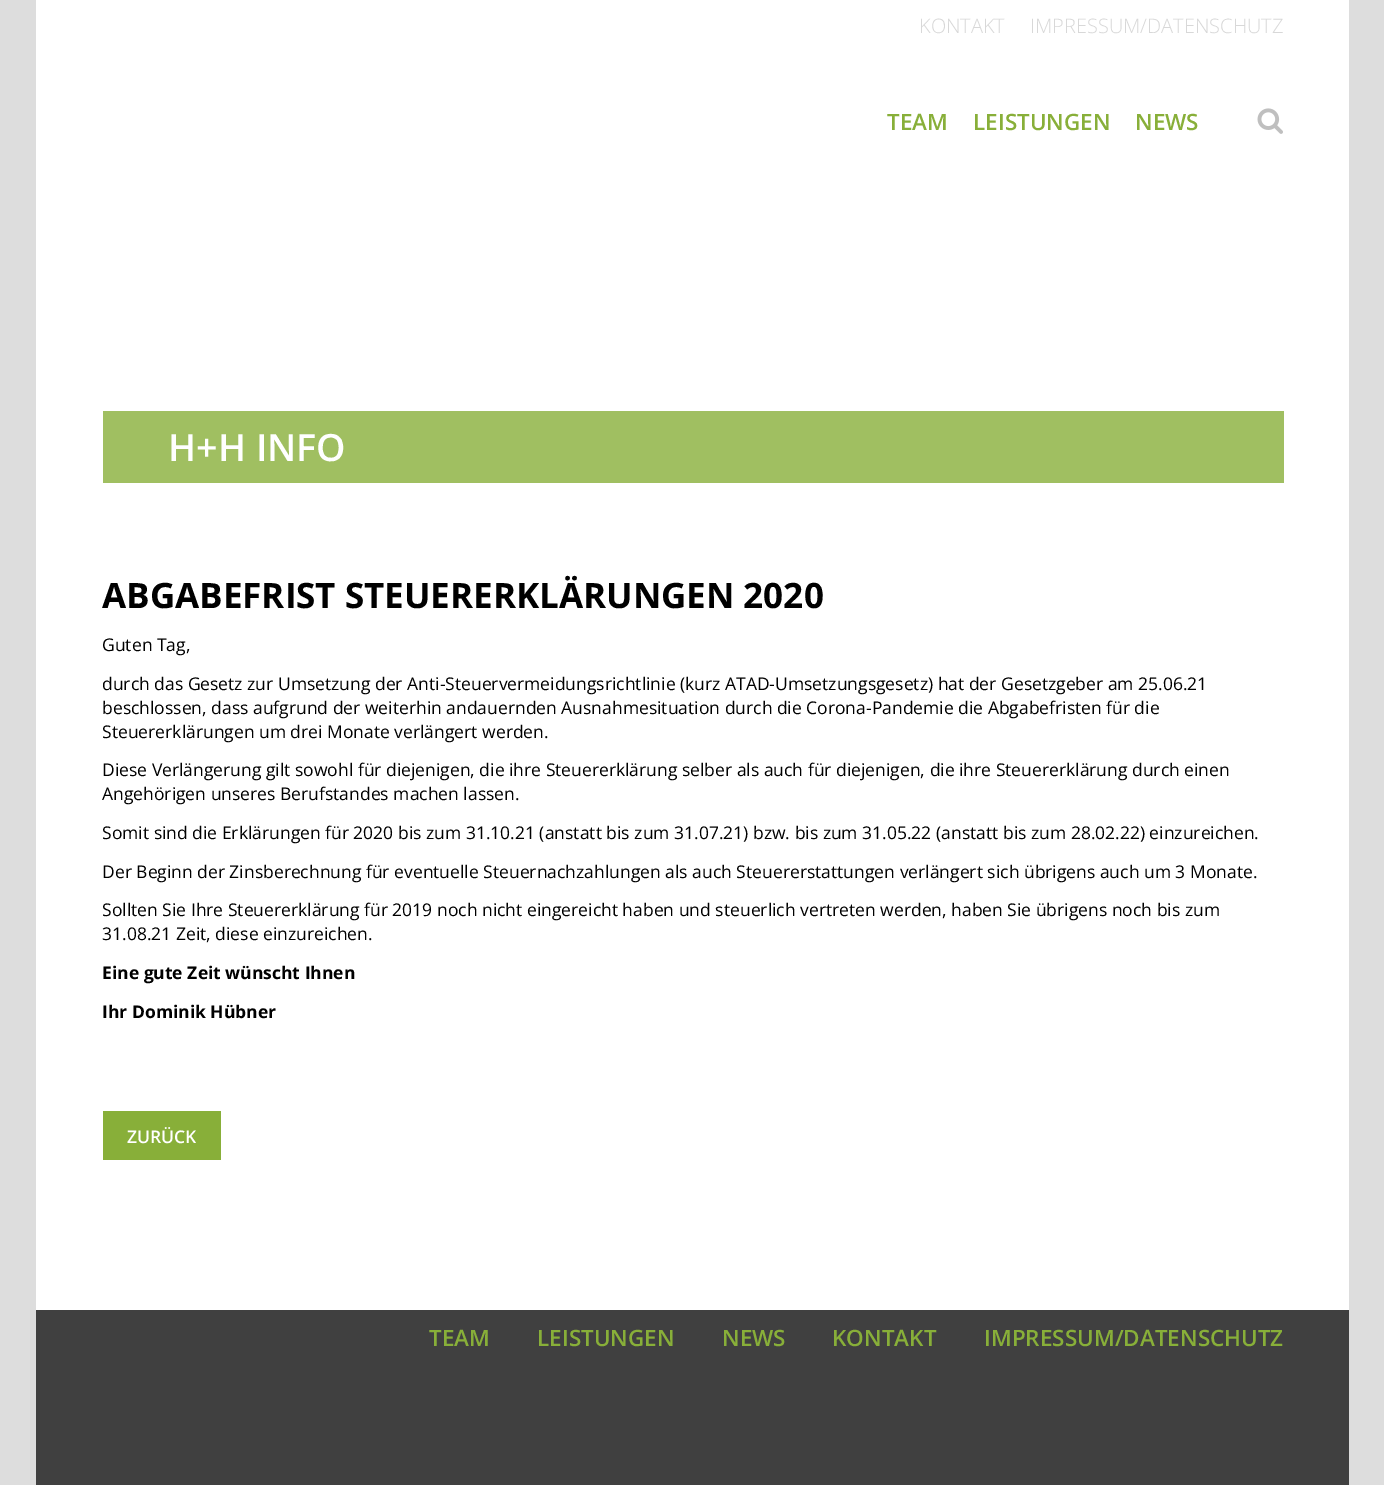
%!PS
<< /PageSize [1384 1485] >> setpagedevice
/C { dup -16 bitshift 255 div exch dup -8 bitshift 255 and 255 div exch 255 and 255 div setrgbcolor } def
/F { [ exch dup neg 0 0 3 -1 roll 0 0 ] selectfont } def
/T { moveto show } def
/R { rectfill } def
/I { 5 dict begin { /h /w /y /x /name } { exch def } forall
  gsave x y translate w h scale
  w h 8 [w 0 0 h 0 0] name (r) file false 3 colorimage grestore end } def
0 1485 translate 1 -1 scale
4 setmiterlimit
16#DDDDDD C
0 0 1384 1485 R
16#FFFFFF C
36 0 1313 1310 R
/OpenSans-Light 20 F
16#D8D8D8 C
(KONTAKT) 919 33 T
(IMPRESSUM/DATENSCHUTZ) 1030 33 T
/OpenSans-SemiBold 22.5 F
16#88AF39 C
(TEAM) 887 130 T
(LEISTUNGEN) 973 130 T
(NEWS) 1135 130 T
(1.rgb) 1257 108 26 26 I
16#A0BF61 C
103 411 1181 72 R
/OpenSans-SemiBold 37.5 F
16#FFFFFF C
(H+H INFO) 168 461 T
/OpenSans-Bold 35 F
16#000000 C
(ABGABEFRIST STEUERERKLÄRUNGEN 2020) 102 608 T
/OpenSans-Regular 17.5 F
(Guten Tag,) 102 651 T
(durch das Gesetz zur Umsetzung der Anti-Steuervermeidungsrichtlinie \(kurz ATAD-Umsetzungsgesetz\) hat der Gesetzgeber am 25.06.21) 102 690 T
(beschlossen, dass aufgrund der weiterhin andauernden Ausnahmesituation durch die Corona-Pandemie die Abgabefristen für die) 102 714 T
(Steuererklärungen um drei Monate verlängert werden.) 102 738 T
(Diese Verlängerung gilt sowohl für diejenigen, die ihre Steuererklärung selber als auch für diejenigen, die ihre Steuererklärung durch einen) 102 776 T
(Angehörigen unseres Berufstandes machen lassen.) 102 800 T
(Somit sind die Erklärungen für 2020 bis zum 31.10.21 \(anstatt bis zum 31.07.21\) bzw. bis zum 31.05.22 \(anstatt bis zum 28.02.22\) einzureichen.) 102 839 T
(Der Beginn der Zinsberechnung für eventuelle Steuernachzahlungen als auch Steuererstattungen verlängert sich übrigens auch um 3 Monate.) 102 878 T
(Sollten Sie Ihre Steuererklärung für 2019 noch nicht eingereicht haben und steuerlich vertreten werden, haben Sie übrigens noch bis zum) 102 916 T
(31.08.21 Zeit, diese einzureichen.) 102 940 T
/OpenSans-Bold 17.5 F
(Eine gute Zeit wünscht Ihnen) 102 979 T
(Ihr Dominik Hübner) 102 1018 T
16#88AF39 C
103 1111 118 49 R
/OpenSans-SemiBold 17.5 F
16#FFFFFF C
(ZURÜCK) 127 1143 T
16#404040 C
36 1310 1313 175 R
/OpenSans-SemiBold 22.5 F
16#88AF39 C
(TEAM) 429 1346 T
(LEISTUNGEN) 537 1346 T
(NEWS) 722 1346 T
(KONTAKT) 832 1346 T
(IMPRESSUM/DATENSCHUTZ) 984 1346 T
showpage
